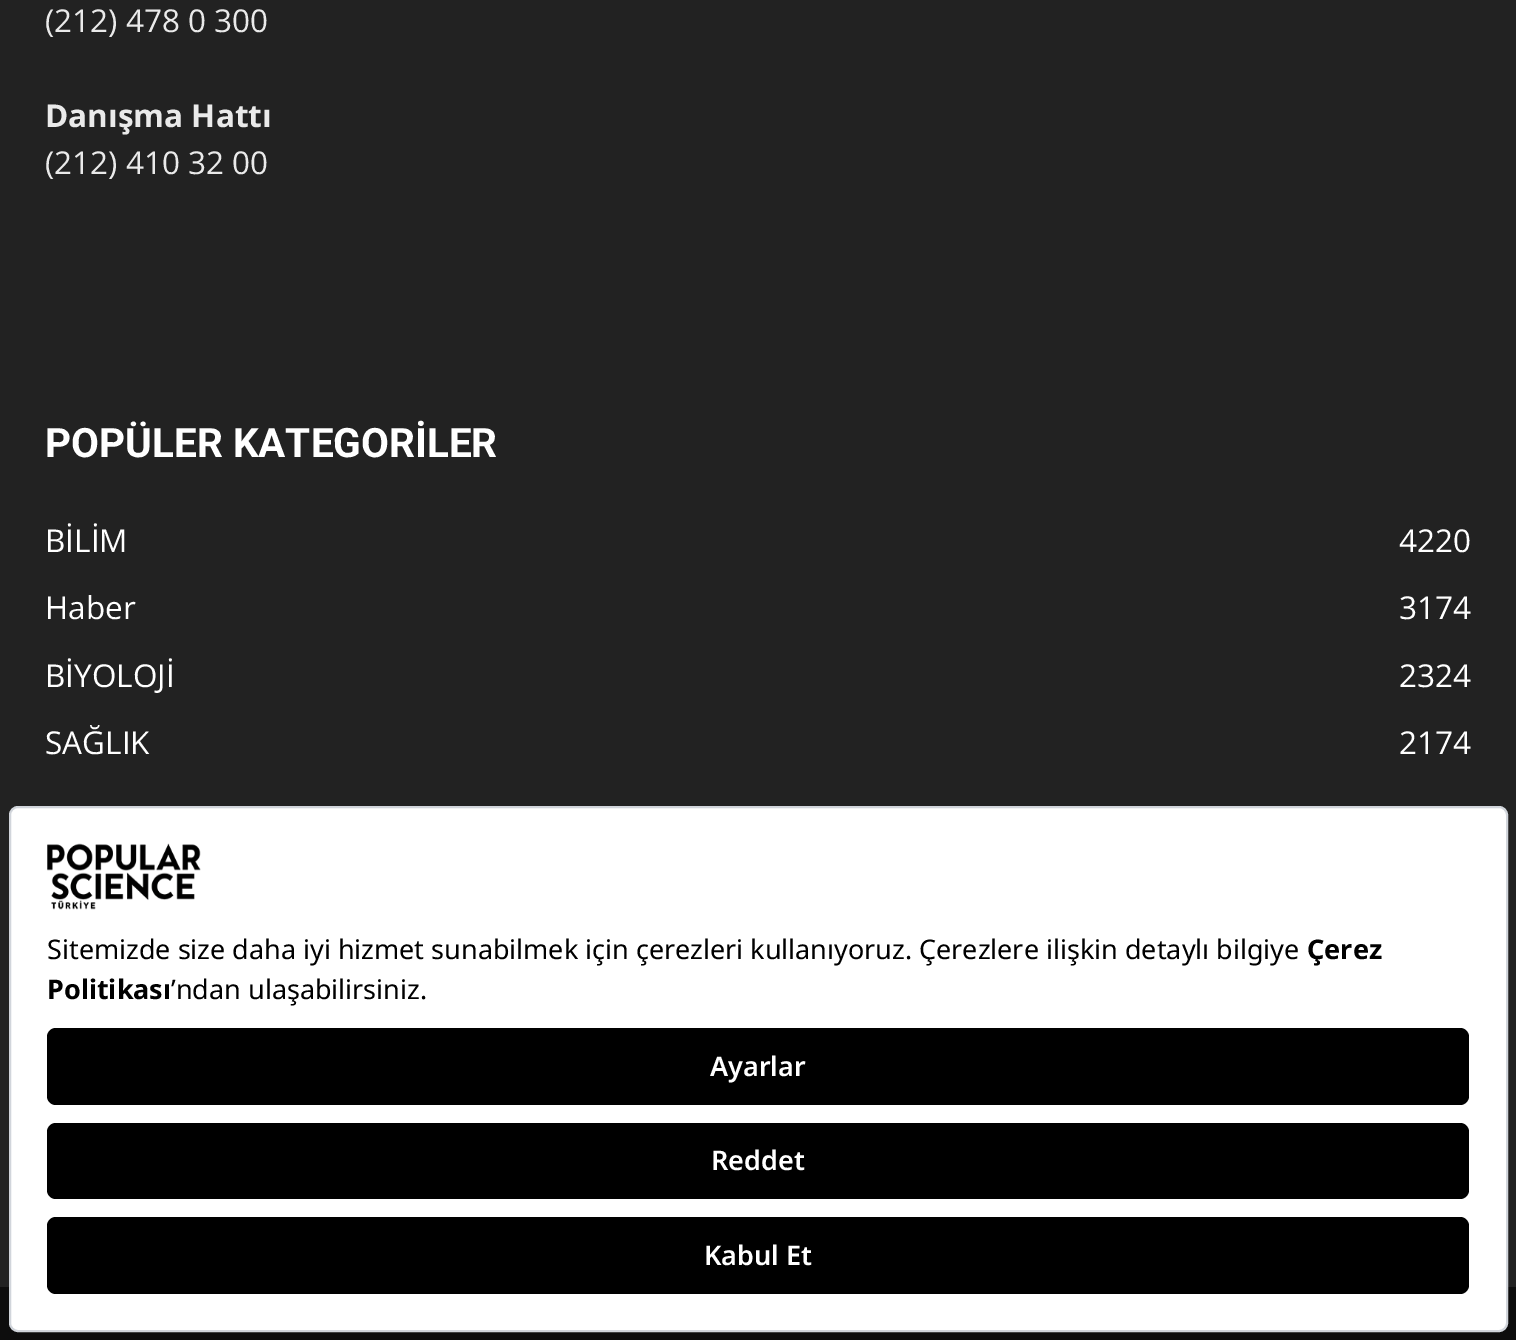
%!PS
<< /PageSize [1516 1340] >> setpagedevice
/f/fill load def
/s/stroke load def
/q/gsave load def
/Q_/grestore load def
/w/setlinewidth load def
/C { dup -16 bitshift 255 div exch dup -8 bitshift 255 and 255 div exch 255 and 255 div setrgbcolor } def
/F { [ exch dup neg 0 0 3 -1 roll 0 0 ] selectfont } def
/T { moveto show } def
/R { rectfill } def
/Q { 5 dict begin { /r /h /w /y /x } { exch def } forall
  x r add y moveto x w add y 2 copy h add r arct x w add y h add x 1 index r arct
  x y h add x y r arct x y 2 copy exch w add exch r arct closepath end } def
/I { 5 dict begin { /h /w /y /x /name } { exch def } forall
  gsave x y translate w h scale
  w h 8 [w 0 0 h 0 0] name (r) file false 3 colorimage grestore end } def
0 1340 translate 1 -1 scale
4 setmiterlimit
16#0D0D0D C
0 0 1516 1340 R
16#222222 C
0 0 1516 1287 R
/OpenSans-Regular 31.5 F
16#EAEAEA C
(\(212\) 478 0 300) 45 32 T
/OpenSans-Bold 31.5 F
(Danışma Hattı) 45 127 T
/OpenSans-Regular 31.5 F
(\(212\) 410 32 00) 45 174 T
/Roboto-Bold 40.5 F
16#FFFFFF C
(POPÜLER KATEGORİLER) 45 457 T
/OpenSans-Regular 31.5 F
(BİLİM) 45 552 T
(4220) 1399 552 T
(Haber) 45 619 T
(3174) 1399 619 T
(BİYOLOJİ) 45 687 T
(2324) 1399 687 T
(SAĞLIK) 45 754 T
(2174) 1399 754 T
10 807 1497 524 8 Q q f Q_
16#D1D5DB C
2 w
s
(1.rgb) 47 843 154 67 I
/NotoSans-Regular 27 F
16#000000 C
(Sitemizde size daha iyi hizmet sunabilmek için çerezleri kullanıyoruz. Çerezlere ilişkin detaylı bilgiye) 47 959 T
/NotoSans-Bold 27 F
(Çerez) 1307 959 T
(Politikası) 47 999 T
/NotoSans-Regular 27 F
(’ndan ulaşabilirsiniz.) 171 999 T
47 1028 1422 77 9 Q f
/NotoSans-SemiBold 27 F
16#FFFFFF C
(Ayarlar) 710 1076 T
16#000000 C
47 1123 1422 76 9 Q f
16#FFFFFF C
(Reddet) 711 1170 T
16#000000 C
47 1217 1422 77 9 Q f
16#FFFFFF C
(Kabul Et) 704 1265 T
showpage
